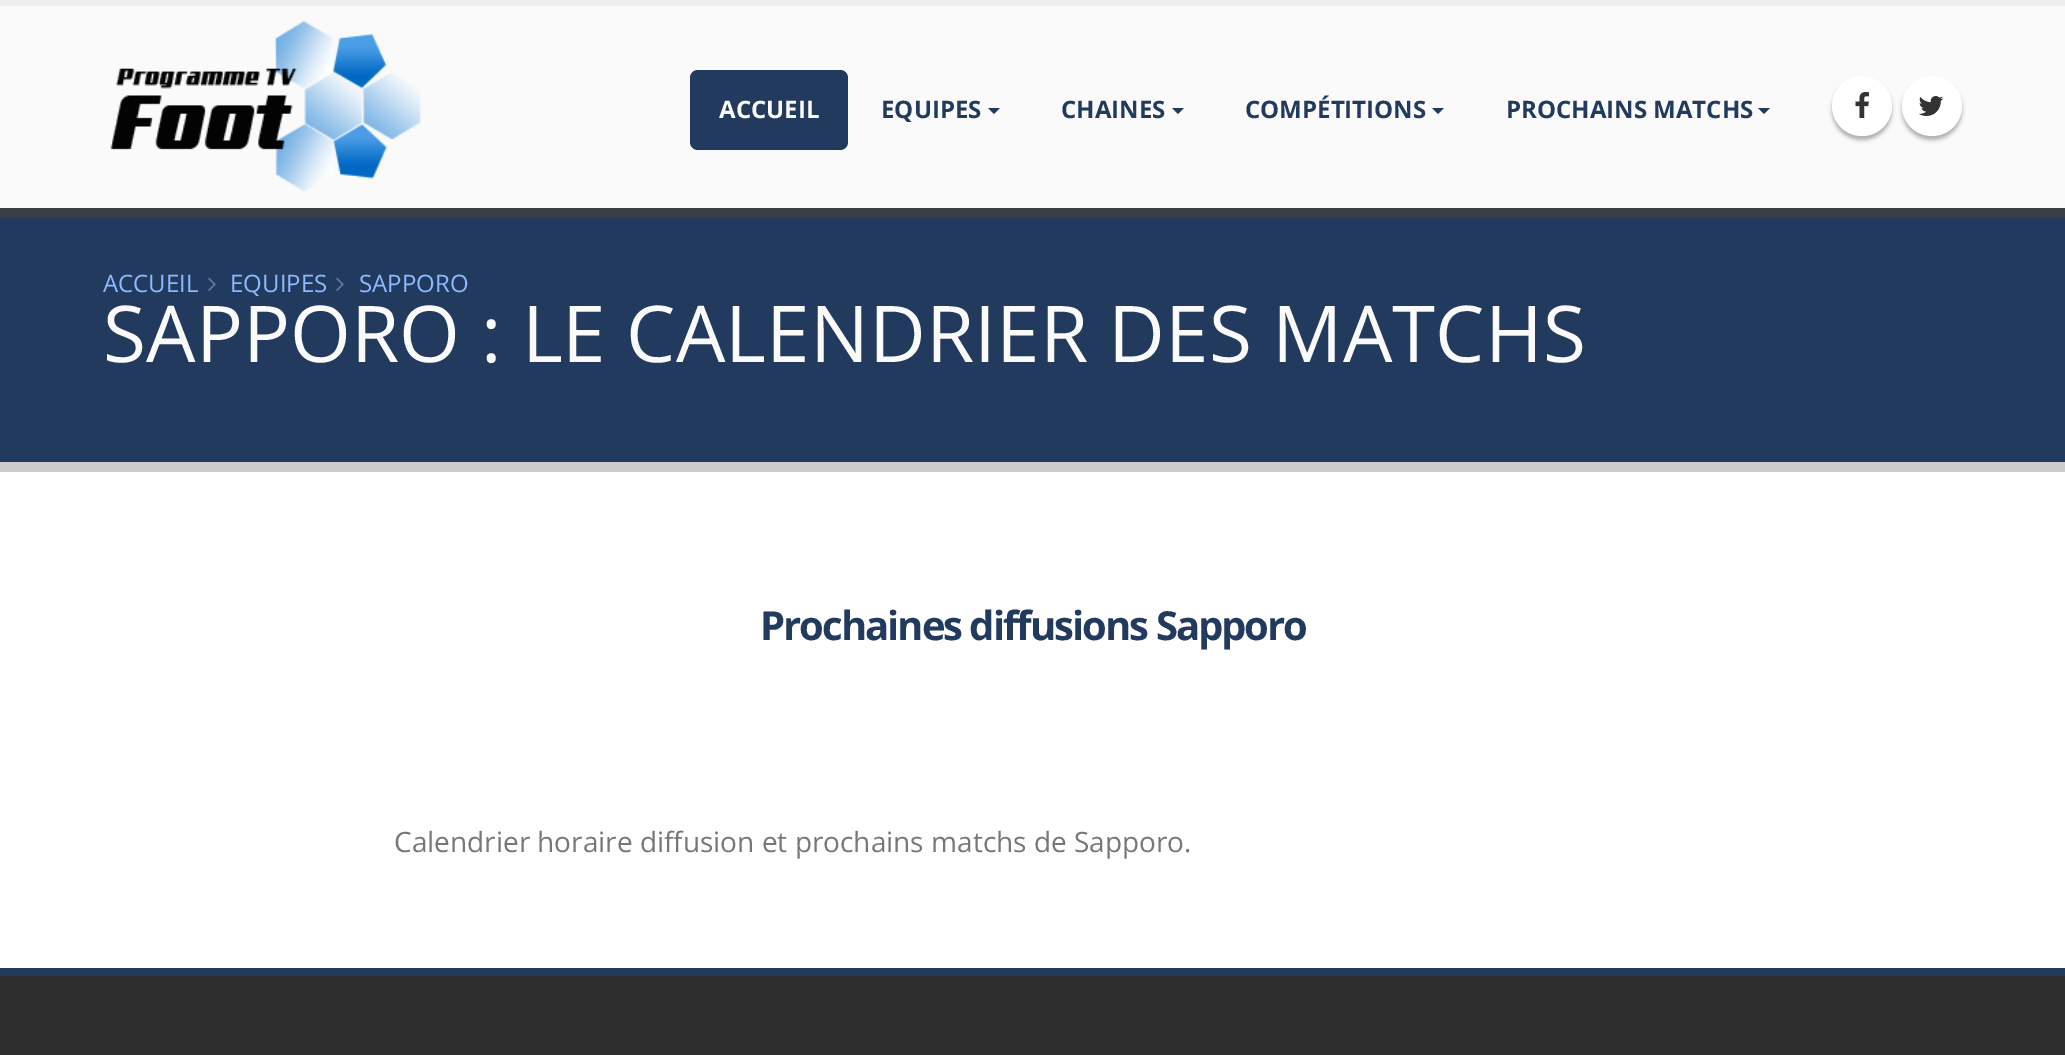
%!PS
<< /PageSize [2065 1055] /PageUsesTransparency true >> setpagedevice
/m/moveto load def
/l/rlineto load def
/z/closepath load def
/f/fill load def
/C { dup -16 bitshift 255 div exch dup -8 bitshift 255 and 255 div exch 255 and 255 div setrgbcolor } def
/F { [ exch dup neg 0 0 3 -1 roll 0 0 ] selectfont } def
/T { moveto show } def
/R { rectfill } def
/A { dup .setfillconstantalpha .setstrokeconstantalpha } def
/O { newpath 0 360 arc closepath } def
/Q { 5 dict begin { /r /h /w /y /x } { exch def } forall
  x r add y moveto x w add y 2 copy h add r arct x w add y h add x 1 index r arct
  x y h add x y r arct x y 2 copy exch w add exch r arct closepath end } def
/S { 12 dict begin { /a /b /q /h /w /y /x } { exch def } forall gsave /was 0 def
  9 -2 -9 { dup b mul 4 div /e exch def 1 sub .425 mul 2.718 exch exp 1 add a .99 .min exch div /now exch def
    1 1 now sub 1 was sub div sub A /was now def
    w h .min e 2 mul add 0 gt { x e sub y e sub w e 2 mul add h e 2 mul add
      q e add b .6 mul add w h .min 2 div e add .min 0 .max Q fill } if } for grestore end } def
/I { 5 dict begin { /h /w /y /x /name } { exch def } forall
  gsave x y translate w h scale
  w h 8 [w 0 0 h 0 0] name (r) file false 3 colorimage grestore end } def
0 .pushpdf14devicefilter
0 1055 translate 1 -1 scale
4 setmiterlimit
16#FFFFFF C
0 0 2065 1055 R
16#FAFAFA C
0 6 2065 202 R
16#EDEDED C
0 0 2065 6 R
(1.rgb) 110 20 311 172 I
16#223A5E C
690 70 158 80 8 Q f
/OpenSans-Bold 24 F
16#FAFAFA C
(ACCUEIL) 719 118 T
16#223A5E C
(EQUIPES) 881 118 T
988 108 m 12 0 l -6 6 l z f
(CHAINES) 1061 118 T
1172 108 m 12 0 l -6 6 l z f
(COMPÉTITIONS) 1245 118 T
1432 108 m 12 0 l -6 6 l z f
(PROCHAINS MATCHS) 1506 118 T
1758 108 m 12 0 l -6 6 l z f
16#000000 C
1832 80 60 60 30 2 .3 S
16#FFFFFF C
1862 106 30 O f
(2.rgb) 1855 92 14 26 I
16#000000 C
1902 80 60 60 30 2 .3 S
16#FFFFFF C
1932 106 30 O f
(3.rgb) 1918 96 26 20 I
16#223A5E C
0 218 2065 244 R
16#384045 C
0 208 2065 10 R
16#CCCCCC C
0 462 2065 10 R
/OpenSans-Regular 24 F
16#8CBAFF C
(ACCUEIL) 103 292 T
(4.rgb) 208 277 8 14 I
(EQUIPES) 230 292 T
(4.rgb) 336 277 8 14 I
(SAPPORO) 359 292 T
/OpenSans-Regular 78.4 F
16#FAFAFA C
(SAPPORO : LE CALENDRIER DES MATCHS) 103 362 T
/OpenSans-Bold 40 F
16#223A5E C
760 640 m -2 0 (Prochaines diffusions Sapporo) ashow
/OpenSans-Regular 28 F
16#777777 C
(Calendrier horaire diffusion et prochains matchs de Sapporo.) 394 852 T
16#2E2E2E C
0 976 2065 79 R
16#223A5E C
0 968 2065 8 R
.poppdf14devicefilter showpage
